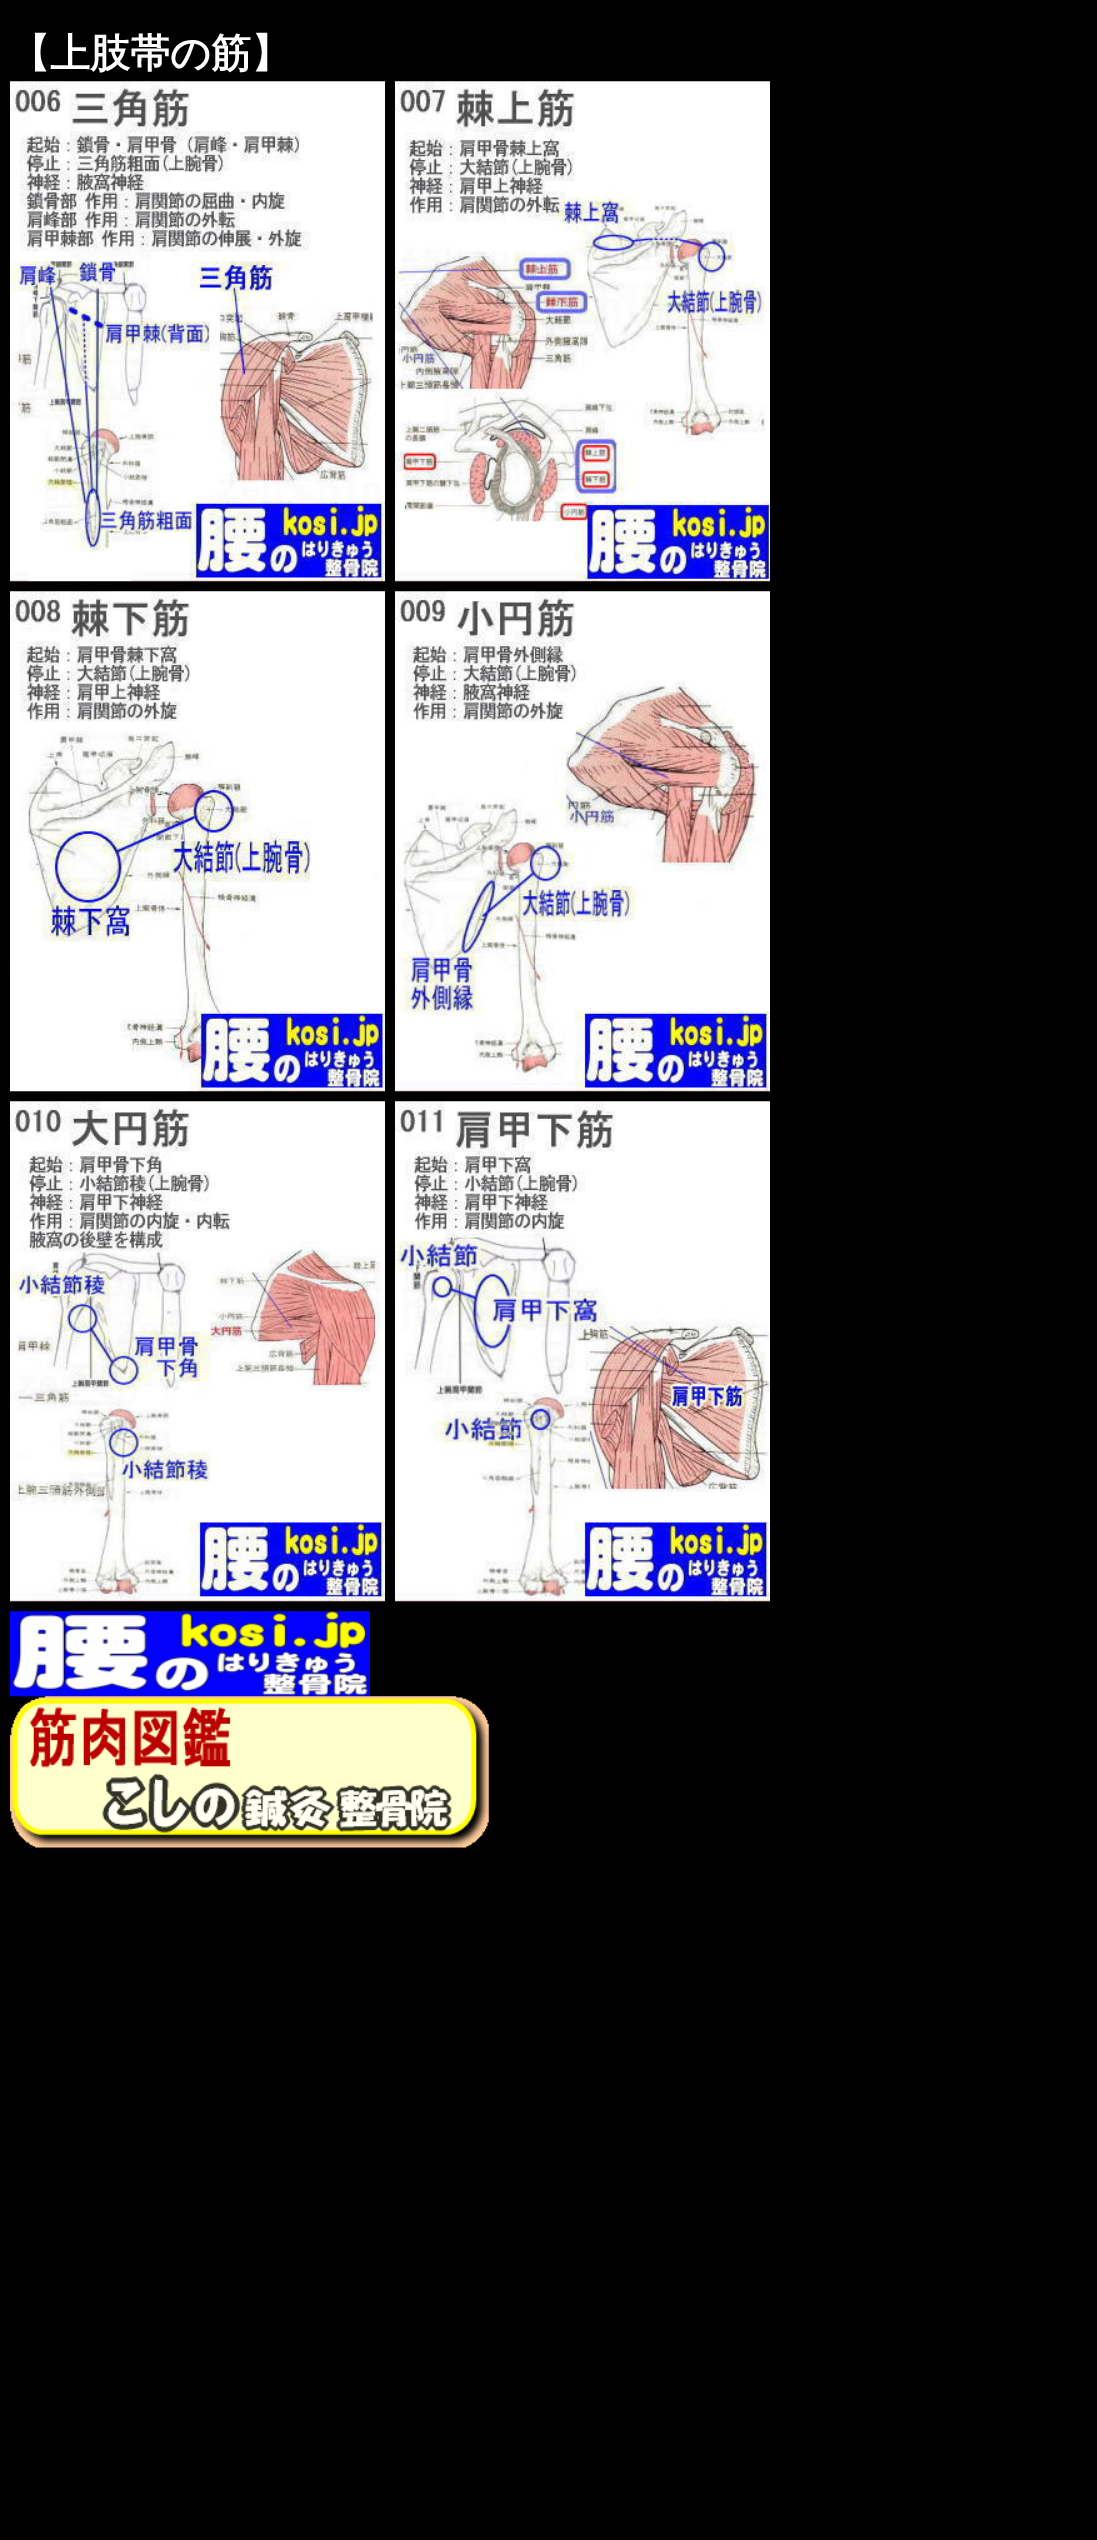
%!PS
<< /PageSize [1097 2540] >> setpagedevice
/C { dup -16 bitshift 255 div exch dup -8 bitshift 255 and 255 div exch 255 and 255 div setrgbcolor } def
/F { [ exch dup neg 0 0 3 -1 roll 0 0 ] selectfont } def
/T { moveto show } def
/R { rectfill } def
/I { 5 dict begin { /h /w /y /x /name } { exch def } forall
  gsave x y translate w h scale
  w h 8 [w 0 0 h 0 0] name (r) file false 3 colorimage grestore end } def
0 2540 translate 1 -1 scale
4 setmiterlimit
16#000000 C
0 0 1097 2540 R
/WenQuanYiZenHei-Bold 40 F
16#FFFFFF C
(【上肢帯の筋】) 10 67 T
(1.rgb) 10 81 375 501 I
(2.rgb) 395 81 375 501 I
(3.rgb) 10 591 375 501 I
(4.rgb) 395 591 375 501 I
(5.rgb) 10 1101 375 501 I
(6.rgb) 395 1101 375 501 I
(7.rgb) 10 1611 360 86 I
(8.rgb) 10 1696 479 152 I
showpage
